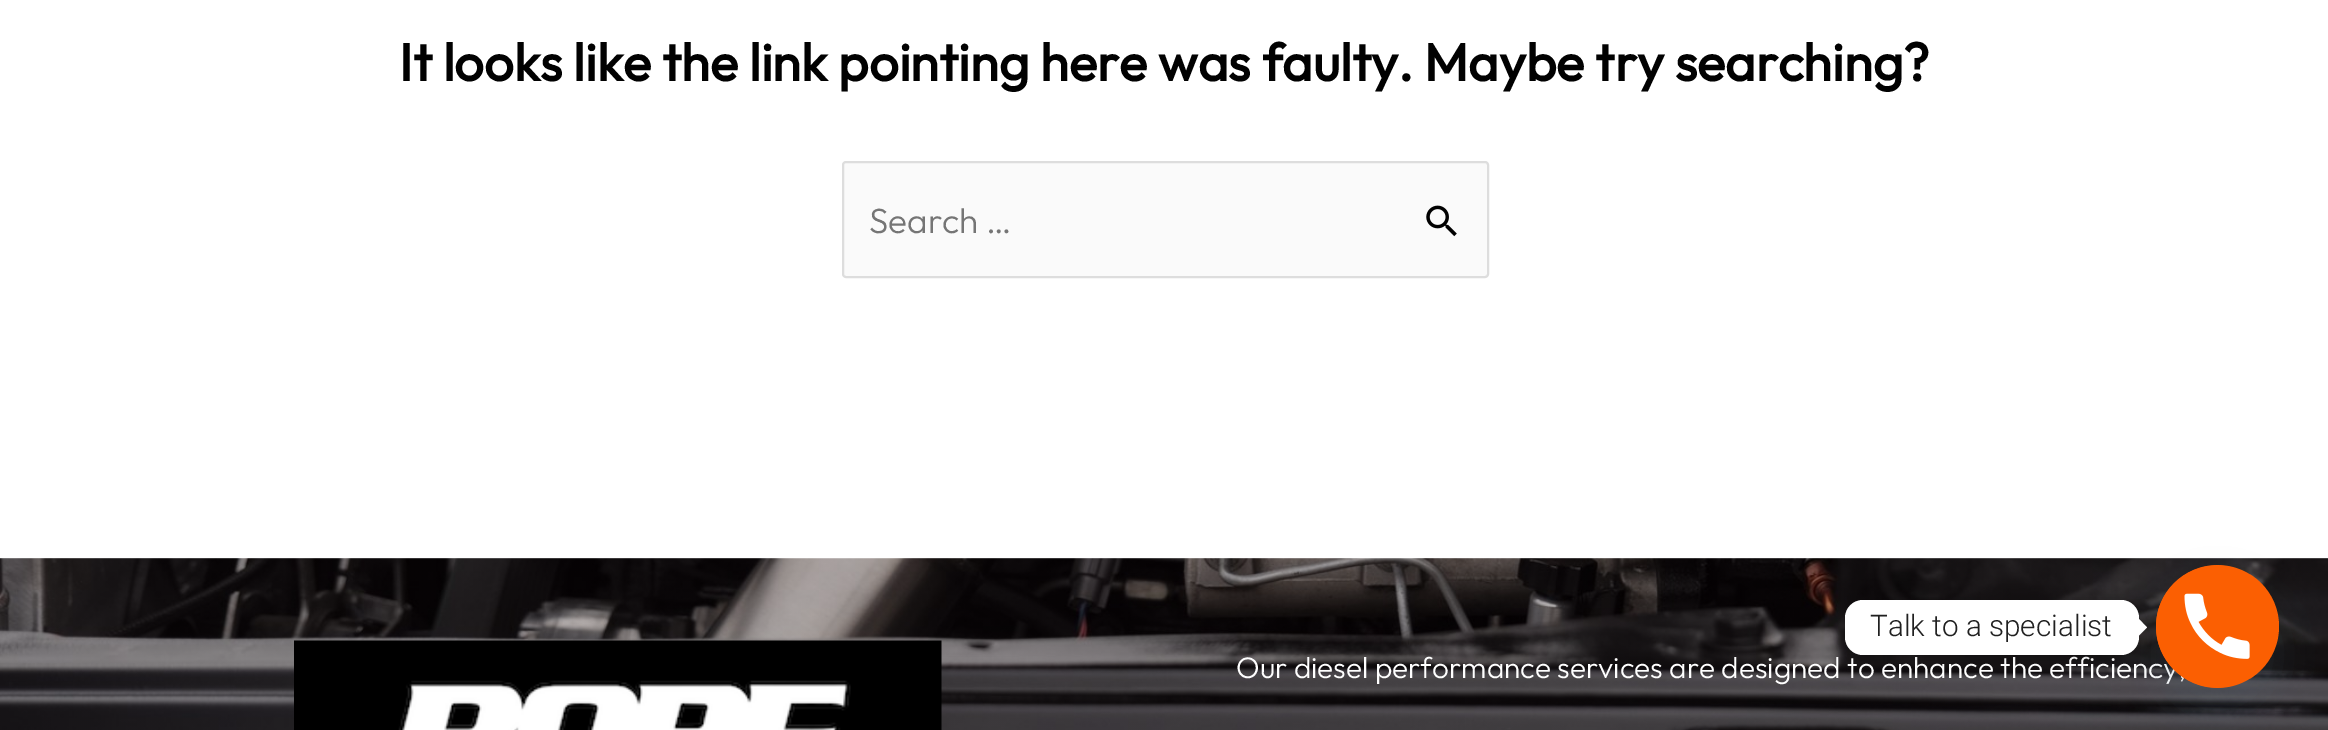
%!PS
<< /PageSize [2328 730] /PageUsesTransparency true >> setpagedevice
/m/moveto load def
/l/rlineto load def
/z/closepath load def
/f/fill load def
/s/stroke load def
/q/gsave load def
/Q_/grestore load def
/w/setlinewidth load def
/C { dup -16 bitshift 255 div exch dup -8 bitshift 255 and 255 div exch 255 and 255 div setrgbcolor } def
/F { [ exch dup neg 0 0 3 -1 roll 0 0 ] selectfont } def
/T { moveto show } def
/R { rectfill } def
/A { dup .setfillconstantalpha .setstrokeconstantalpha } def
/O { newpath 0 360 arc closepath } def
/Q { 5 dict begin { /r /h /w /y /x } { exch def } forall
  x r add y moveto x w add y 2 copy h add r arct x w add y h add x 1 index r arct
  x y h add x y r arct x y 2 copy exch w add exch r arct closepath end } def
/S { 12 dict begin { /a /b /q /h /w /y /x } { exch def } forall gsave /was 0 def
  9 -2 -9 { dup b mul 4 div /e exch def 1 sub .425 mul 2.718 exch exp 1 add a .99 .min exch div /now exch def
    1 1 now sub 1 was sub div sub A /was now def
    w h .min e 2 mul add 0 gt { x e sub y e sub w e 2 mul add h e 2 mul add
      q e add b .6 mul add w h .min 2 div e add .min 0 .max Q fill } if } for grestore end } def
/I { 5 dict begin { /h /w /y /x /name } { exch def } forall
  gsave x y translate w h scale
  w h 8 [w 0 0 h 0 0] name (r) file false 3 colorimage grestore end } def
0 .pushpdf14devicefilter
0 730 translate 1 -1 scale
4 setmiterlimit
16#FFFFFF C
0 0 2328 730 R
/Outfit-Bold 52.5 F
16#010101 C
(It looks like the link pointing here was faulty. Maybe try searching?) 399 81 T
16#FAFAFA C
843 162 645 115 3 Q q f Q_
16#DDDDDD C
2 w
s
/Outfit-Light 35 F
16#757575 C
(Search …) 869 233 T
(1.rgb) 1426 205 31 32 I
(2.rgb) 0 558 2328 172 I
(3.rgb) 294 640 648 90 I
/Outfit-Light 29.75 F
16#FFFFFF C
(Our diesel performance services are designed to enhance the efficiency,) 1236 678 T
16#49687E C
2156 593 123 123 61.5 21 .16 S
16#FB5F02 C
2217.5 626.5 61.5 O f
(4.rgb) 2156 565 94 123 I
16#000000 C
1845 602 294 54 18 7 .15 S
16#FFFFFF C
1845 600 294 55 18 Q f
/Roboto-Light 29.75 F
16#202020 C
(Talk to a specialist) 1870 636 T
16#FFFFFF C
2138.5 636 m 0 -17.5 l 8.5 9 l z f
.poppdf14devicefilter showpage
